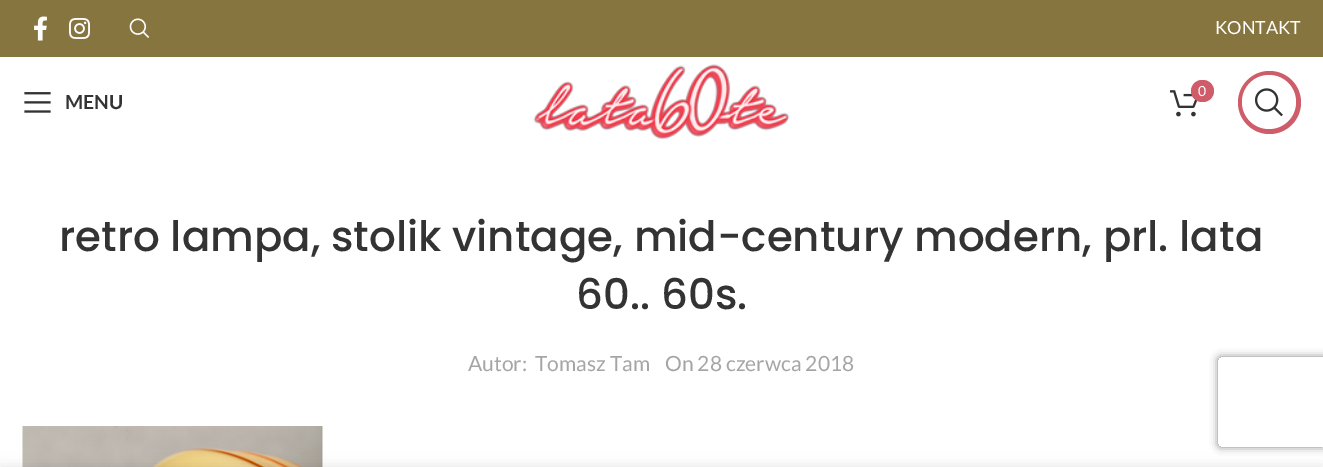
%!PS
<< /PageSize [1323 467] /PageUsesTransparency true >> setpagedevice
/m/moveto load def
/l/rlineto load def
/c/rcurveto load def
/z/closepath load def
/f/fill load def
/q/gsave load def
/Q_/grestore load def
/C { dup -16 bitshift 255 div exch dup -8 bitshift 255 and 255 div exch 255 and 255 div setrgbcolor } def
/F { [ exch dup neg 0 0 3 -1 roll 0 0 ] selectfont } def
/T { moveto show } def
/R { rectfill } def
/A { dup .setfillconstantalpha .setstrokeconstantalpha } def
/O { newpath 0 360 arc closepath } def
/Q { 5 dict begin { /r /h /w /y /x } { exch def } forall
  x r add y moveto x w add y 2 copy h add r arct x w add y h add x 1 index r arct
  x y h add x y r arct x y 2 copy exch w add exch r arct closepath end } def
/S { 12 dict begin { /a /b /q /h /w /y /x } { exch def } forall gsave /was 0 def
  9 -2 -9 { dup b mul 4 div /e exch def 1 sub .425 mul 2.718 exch exp 1 add a .99 .min exch div /now exch def
    1 1 now sub 1 was sub div sub A /was now def
    w h .min e 2 mul add 0 gt { x e sub y e sub w e 2 mul add h e 2 mul add
      q e add b .6 mul add w h .min 2 div e add .min 0 .max Q fill } if } for grestore end } def
/I { 5 dict begin { /h /w /y /x /name } { exch def } forall
  gsave x y translate w h scale
  w h 8 [w 0 0 h 0 0] name (r) file false 3 colorimage grestore end } def
0 .pushpdf14devicefilter
0 467 translate 1 -1 scale
4 setmiterlimit
16#FFFFFF C
0 0 1323 467 R
16#877540 C
0 0 1323 57 R
(1.rgb) 34 16 13 25 I
(2.rgb) 69 18 21 21 I
(3.rgb) 129 18 21 20 I
/Lato-Regular 18 F
16#FFFFFF C
(KONTAKT) 1215 34 T
(4.rgb) 533 64 257 76 I
(5.rgb) 1170 90 28 27 I
16#CF5C69 C
1191 80 23 22 11 Q f
/Lato-Regular 14 F
16#FFFFFF C
(0) 1198 96 T
16#CF5C69 C
1269.5 102.5 31.5 O f
16#FFFFFF C
1269 102 27 O f
(6.rgb) 1255 88 28 29 I
(7.rgb) 24 92 27 21 I
/Lato-Bold 19.5 F
16#333333 C
(MENU) 65 109 T
/Poppins-Medium 42 F
(retro lampa, stolik vintage, mid-century modern, prl. lata) 59 251 T
(60.. 60s.) 576 309 T
/Lato-Regular 21 F
16#A5A5A5 C
(Autor:) 468 371 T
(Tomasz Tam) 535 371 T
(On 28 czerwca 2018) 665 371 T
(8.rgb) 22 426 301 41 I
q
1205 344 m 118 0 l 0 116 l -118 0 l z 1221 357 m 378 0 l 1.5 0 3 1.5 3 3 c 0 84 l 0 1.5 -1.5 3 -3 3 c -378 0 l -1.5 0 -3 -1.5 -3 -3 c 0 -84 l 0 -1.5 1.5 -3 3 -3 c z eoclip newpath
16#808080 C
1218 357 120 90 3 4 1 S
Q_
16#FFFFFF C
1305 390 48 60 30 Q f
16#000000 C
0 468 1323 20 0 7 .14 S
.poppdf14devicefilter showpage
